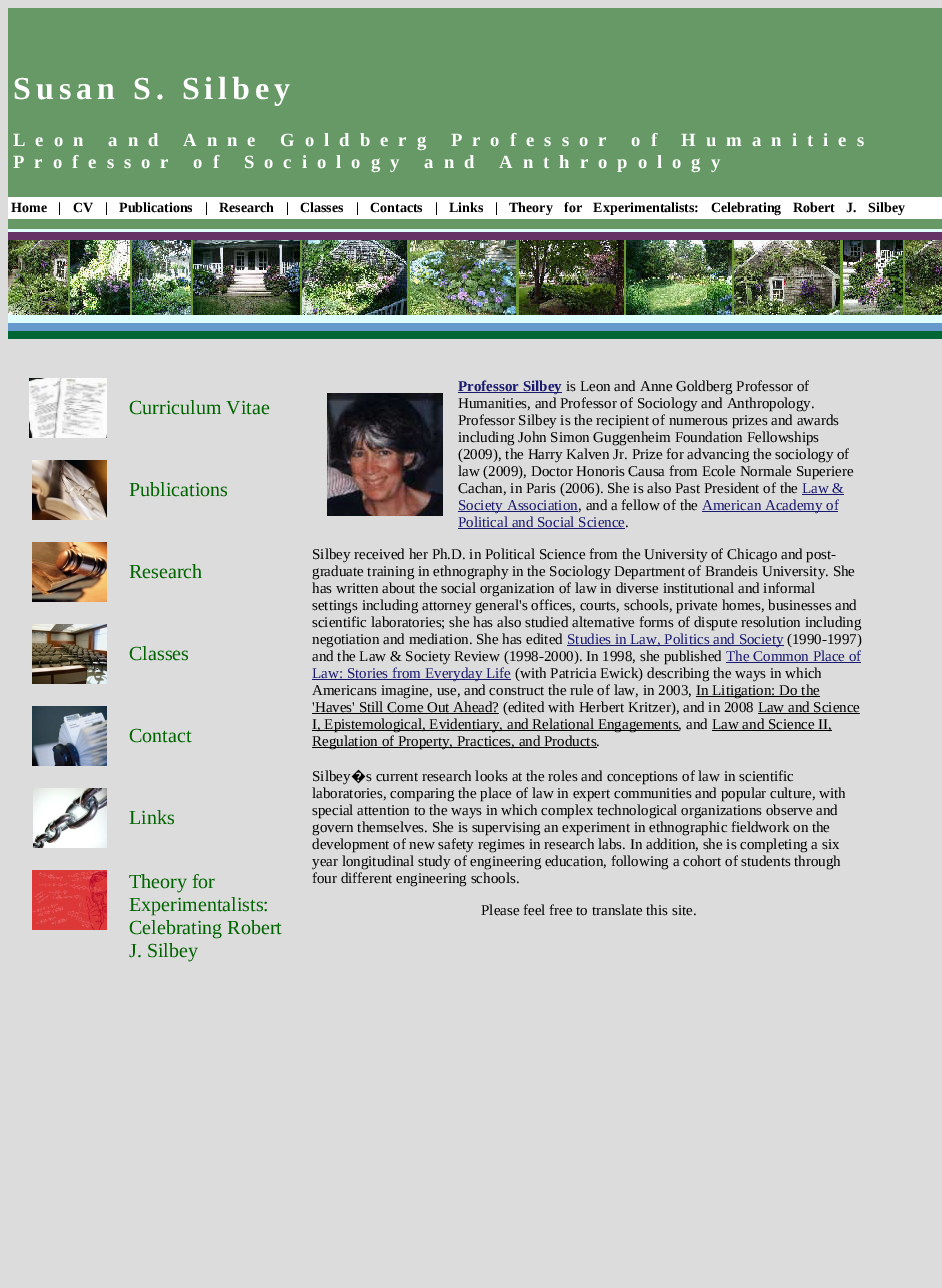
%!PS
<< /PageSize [942 1288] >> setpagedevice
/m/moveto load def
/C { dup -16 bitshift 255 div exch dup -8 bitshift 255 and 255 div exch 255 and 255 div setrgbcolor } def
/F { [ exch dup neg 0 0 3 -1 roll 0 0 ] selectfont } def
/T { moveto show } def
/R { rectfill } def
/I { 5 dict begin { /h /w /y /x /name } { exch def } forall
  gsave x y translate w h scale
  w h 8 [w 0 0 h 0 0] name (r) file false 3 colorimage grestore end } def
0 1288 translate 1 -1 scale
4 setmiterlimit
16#DCDCDC C
0 0 942 1288 R
16#669966 C
8 8 934 189 R
/LiberationSerif-Bold 32 F
16#FFFFFF C
13 99 m 5 0 (Susan S. Silbey) ashow
/LiberationSerif-Bold 18.7 F
13 146 m 10 0 (Leon and Anne Goldberg Professor of Humanities) ashow
13 168 m 10 0 (Professor of Sociology and Anthropology) ashow
8 197 934 22 R
/LiberationSerif-Bold 14 F
16#000000 C
(Home) 11 212 T
(|) 58 212 T
(CV) 73 212 T
(|) 105 212 T
(Publications) 119 212 T
(|) 205 212 T
(Research) 219 212 T
(|) 286 212 T
(Classes) 300 212 T
(|) 356 212 T
(Contacts) 370 212 T
(|) 435 212 T
(Links) 449 212 T
(|) 495 212 T
509 212 m 8 0 32 (Theory for Experimentalists: Celebrating) widthshow
793 212 m 8 0 32 (Robert J. Silbey) widthshow
16#669966 C
8 219 934 10 R
16#E0FFFF C
8 229 934 3 R
16#663366 C
8 232 934 8 R
(1.rgb) 8 240 934 75 I
16#E0FFFF C
8 315 934 8 R
16#6699CC C
8 323 934 8 R
16#006633 C
8 331 934 8 R
(2.rgb) 29 378 78 60 I
/LiberationSerif-Regular 20 F
16#006400 C
(Curriculum Vitae) 129 414 T
16#191970 C
458 392 104 1 R
/LiberationSerif-Bold 15 F
(Professor Silbey) 458 391 T
/LiberationSerif-Regular 15 F
16#000000 C
(is Leon and Anne Goldberg Professor of) 566 391 T
(3.rgb) 327 393 116 123 I
(Humanities, and Professor of Sociology and Anthropology.) 458 408 T
(Professor Silbey is the recipient of numerous prizes and awards) 458 425 T
(including John Simon Guggenheim Foundation Fellowships) 458 442 T
(\(2009\), the Harry Kalven Jr. Prize for advancing the sociology of) 458 459 T
(law \(2009\), Doctor Honoris Causa from Ecole Normale Superiere) 458 476 T
(Cachan, in Paris \(2006\). She is also Past President of the) 458 493 T
16#191970 C
(Law &) 802 493 T
802 494 42 1 R
458 511 120 1 R
(Society Association) 458 510 T
16#000000 C
(, and a fellow of the) 578 510 T
16#191970 C
702 511 136 1 R
(American Academy of) 702 510 T
(Political and Social Science) 458 527 T
458 528 167 1 R
16#000000 C
(.) 625 527 T
(Silbey received her Ph.D. in Political Science from the University of Chicago and post-) 312 559 T
(graduate training in ethnography in the Sociology Department of Brandeis University. She) 312 576 T
(has written about the social organization of law in diverse institutional and informal) 312 593 T
(settings including attorney general's offices, courts, schools, private homes, businesses and) 312 610 T
(scientific laboratories; she has also studied alternative forms of dispute resolution including) 312 627 T
(negotiation and mediation. She has edited) 312 644 T
16#191970 C
567 645 217 1 R
(Studies in Law, Politics and Society) 567 644 T
16#000000 C
(\(1990-1997\)) 787 644 T
(and the Law & Society Review \(1998-2000\). In 1998, she published) 312 661 T
16#191970 C
(The Common Place of) 726 661 T
726 662 135 1 R
312 679 199 1 R
(Law: Stories from Everyday Life) 312 678 T
16#000000 C
(\(with Patricia Ewick\) describing the ways in which) 515 678 T
(Americans imagine, use, and construct the rule of law, in 2003,) 312 695 T
696 696 124 1 R
(In Litigation: Do the) 696 695 T
312 713 187 1 R
('Haves' Still Come Out Ahead? \(edited with Herbert Kritzer\), and in 2008 Law and Science) 312 712 T
312 730 367 1 R
(I, Epistemological, Evidentiary, and Relational Engagements, and) 312 729 T
758 713 102 1 R
712 730 120 1 R
(Law and Science II,) 712 729 T
312 747 285 1 R
(Regulation of Property, Practices, and Products.) 312 746 T
(Silbey) 312 781 T
/NotoSans-Regular 15 F
(�) 351 781 T
/LiberationSerif-Regular 15 F
(s current research looks at the roles and conceptions of law in scientific) 366 781 T
(laboratories, comparing the place of law in expert communities and popular culture, with) 312 798 T
(special attention to the ways in which complex technological organizations observe and) 312 815 T
(govern themselves. She is supervising an experiment in ethnographic fieldwork on the) 312 832 T
(development of new safety regimes in research labs. In addition, she is completing a six) 312 849 T
(year longitudinal study of engineering education, following a cohort of students through) 312 866 T
(four different engineering schools.) 312 883 T
(Please feel free to translate this site.) 481 915 T
(4.rgb) 32 460 75 60 I
/LiberationSerif-Regular 20 F
16#006400 C
(Publications) 129 496 T
(5.rgb) 32 542 75 60 I
(Research) 129 578 T
(6.rgb) 32 624 75 60 I
(Classes) 129 660 T
(7.rgb) 32 706 75 60 I
(Contact) 129 742 T
(8.rgb) 33 788 74 60 I
(Links) 129 824 T
(9.rgb) 32 870 75 60 I
(Theory for) 129 888 T
(Experimentalists:) 129 911 T
(Celebrating Robert) 129 934 T
(J. Silbey) 129 957 T
showpage
